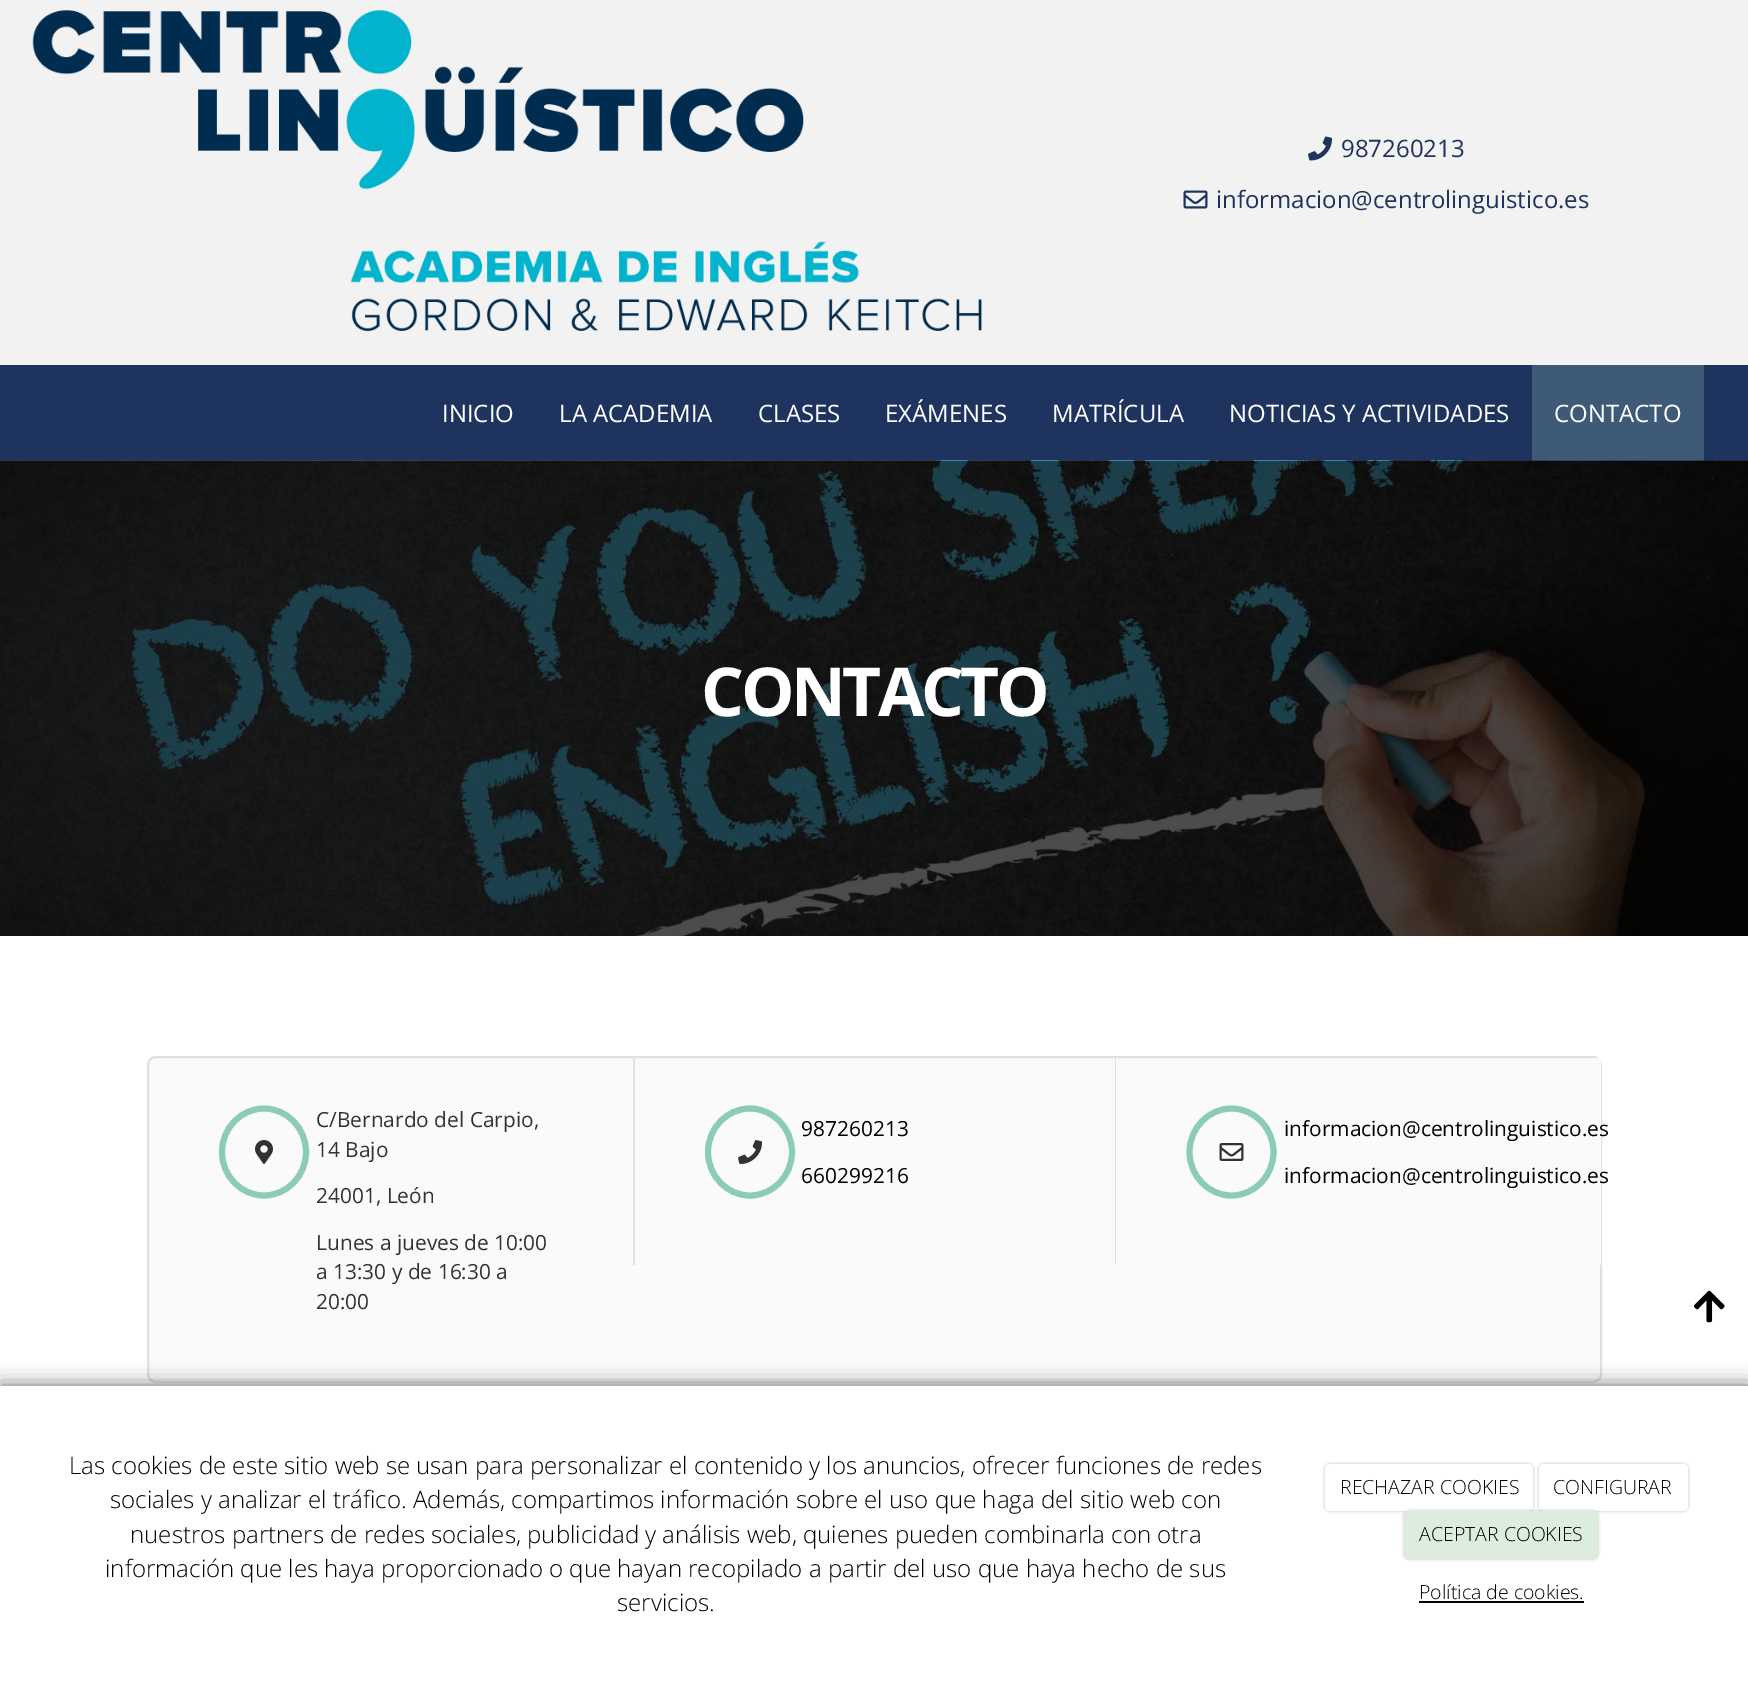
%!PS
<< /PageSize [1748 1683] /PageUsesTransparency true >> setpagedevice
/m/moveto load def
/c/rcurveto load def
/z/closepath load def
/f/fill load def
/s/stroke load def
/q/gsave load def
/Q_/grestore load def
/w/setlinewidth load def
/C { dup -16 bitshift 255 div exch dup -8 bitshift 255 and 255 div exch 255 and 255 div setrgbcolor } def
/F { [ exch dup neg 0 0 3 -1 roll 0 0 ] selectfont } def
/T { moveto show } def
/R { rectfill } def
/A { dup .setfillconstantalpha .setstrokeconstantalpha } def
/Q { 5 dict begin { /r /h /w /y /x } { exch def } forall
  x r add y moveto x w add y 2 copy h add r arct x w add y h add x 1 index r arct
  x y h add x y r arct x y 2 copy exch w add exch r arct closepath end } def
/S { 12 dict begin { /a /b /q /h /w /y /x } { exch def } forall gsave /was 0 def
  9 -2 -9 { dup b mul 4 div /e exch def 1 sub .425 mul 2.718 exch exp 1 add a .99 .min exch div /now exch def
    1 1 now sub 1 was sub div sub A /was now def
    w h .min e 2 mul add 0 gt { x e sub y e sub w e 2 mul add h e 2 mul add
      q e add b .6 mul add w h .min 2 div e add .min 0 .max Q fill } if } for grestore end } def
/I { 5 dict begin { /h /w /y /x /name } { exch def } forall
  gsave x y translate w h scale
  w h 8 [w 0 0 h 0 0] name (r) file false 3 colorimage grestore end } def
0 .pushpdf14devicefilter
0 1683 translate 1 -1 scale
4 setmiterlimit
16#FFFFFF C
0 0 1748 1683 R
16#F2F2F2 C
0 0 1748 365 R
(1.rgb) 32 10 950 321 I
(2.rgb) 1308 136 24 25 I
/OpenSans-Regular 24 F
16#1F335F C
(987260213) 1341 157 T
(3.rgb) 1183 190 25 19 I
(informacion@centrolinguistico.es) 1216 208 T
0 365 1748 96 R
16#FFFFFF C
(INICIO) 442 422 T
(LA ACADEMIA) 559 422 T
(CLASES) 758 422 T
(EXÁMENES) 885 422 T
(MATRÍCULA) 1052 422 T
(NOTICIAS Y ACTIVIDADES) 1229 422 T
16#3E5A76 C
1532 365 172 96 R
16#FFFFFF C
(CONTACTO) 1554 422 T
(4.rgb) 0 460 1748 476 I
/OpenSans-Bold 67.5 F
701 716 m -3.5 0 (CONTACTO) ashow
16#FAFAFA C
148 1057 1453 325 8 Q q f Q_
16#E1E1E1 C
2 w
s
16#8CCBB4 C
6 w
264 1108.5 m 23 0 42 19.5 42 43.5 c 0 24 -19 43.5 -42 43.5 c -23 0 -42 -19.5 -42 -43.5 c 0 -24 19 -43.5 42 -43.5 c z s
(5.rgb) 255 1140 18 24 I
/OpenSans-Regular 20.9 F
16#333333 C
(C/Bernardo del Carpio,) 316 1127 T
(14 Bajo) 316 1157 T
(24001, León) 316 1203 T
(Lunes a jueves de 10:00) 316 1250 T
(a 13:30 y de 16:30 a) 316 1279 T
(20:00) 316 1309 T
16#E1E1E1 C
1115 1058 1 207 R
633 1058 2 207 R
16#8CCBB4 C
750 1108.5 m 23 0 42 19.5 42 43.5 c 0 24 -19 43.5 -42 43.5 c -23 0 -42 -19.5 -42 -43.5 c 0 -24 19 -43.5 42 -43.5 c z s
(6.rgb) 738 1140 25 24 I
16#000000 C
(987260213) 801 1136 T
(660299216) 801 1183 T
16#FAFAFA C
1594 1058 7 207 R
16#8CCBB4 C
1231.5 1108.5 m 23 0 42 19.5 42 43.5 c 0 24 -19 43.5 -42 43.5 c -23 0 -42 -19.5 -42 -43.5 c 0 -24 19 -43.5 42 -43.5 c z s
(7.rgb) 1219 1143 25 18 I
16#000000 C
(informacion@centrolinguistico.es) 1284 1136 T
(informacion@centrolinguistico.es) 1284 1183 T
(8.rgb) 1693 1290 32 33 I
0 1386 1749 297 0 10 .6 S
16#FFFFFF C
0 1386 1748 297 R
/OpenSans-Light 24 F
16#000000 C
(Las cookies de este sitio web se usan para personalizar el contenido y los anuncios, ofrecer funciones de redes) 69 1474 T
(sociales y analizar el tráfico. Además, compartimos información sobre el uso que haga del sitio web con) 110 1508 T
(nuestros partners de redes sociales, publicidad y análisis web, quienes pueden combinarla con otra) 130 1543 T
(información que les haya proporcionado o que hayan recopilado a partir del uso que haya hecho de sus) 105 1577 T
(servicios.) 617 1611 T
1325 1464 208 47 5 1.5 .25 S
16#FFFFFF C
1325 1464 208 47 5 Q f
/OpenSans-Light 19.5 F
16#000000 C
(RECHAZAR COOKIES) 1340 1494 T
1539 1464 149 47 5 1.5 .25 S
16#FFFFFF C
1539 1464 149 47 5 Q f
16#000000 C
(CONFIGURAR) 1553 1494 T
1404 1511 194 48 5 1.5 .25 S
16#DCECDF C
1404 1511 194 48 5 Q f
16#000000 C
(ACEPTAR COOKIES) 1419 1541 T
(Política de cookies.) 1419 1599 T
1419 1601 165 2 R
.poppdf14devicefilter showpage
